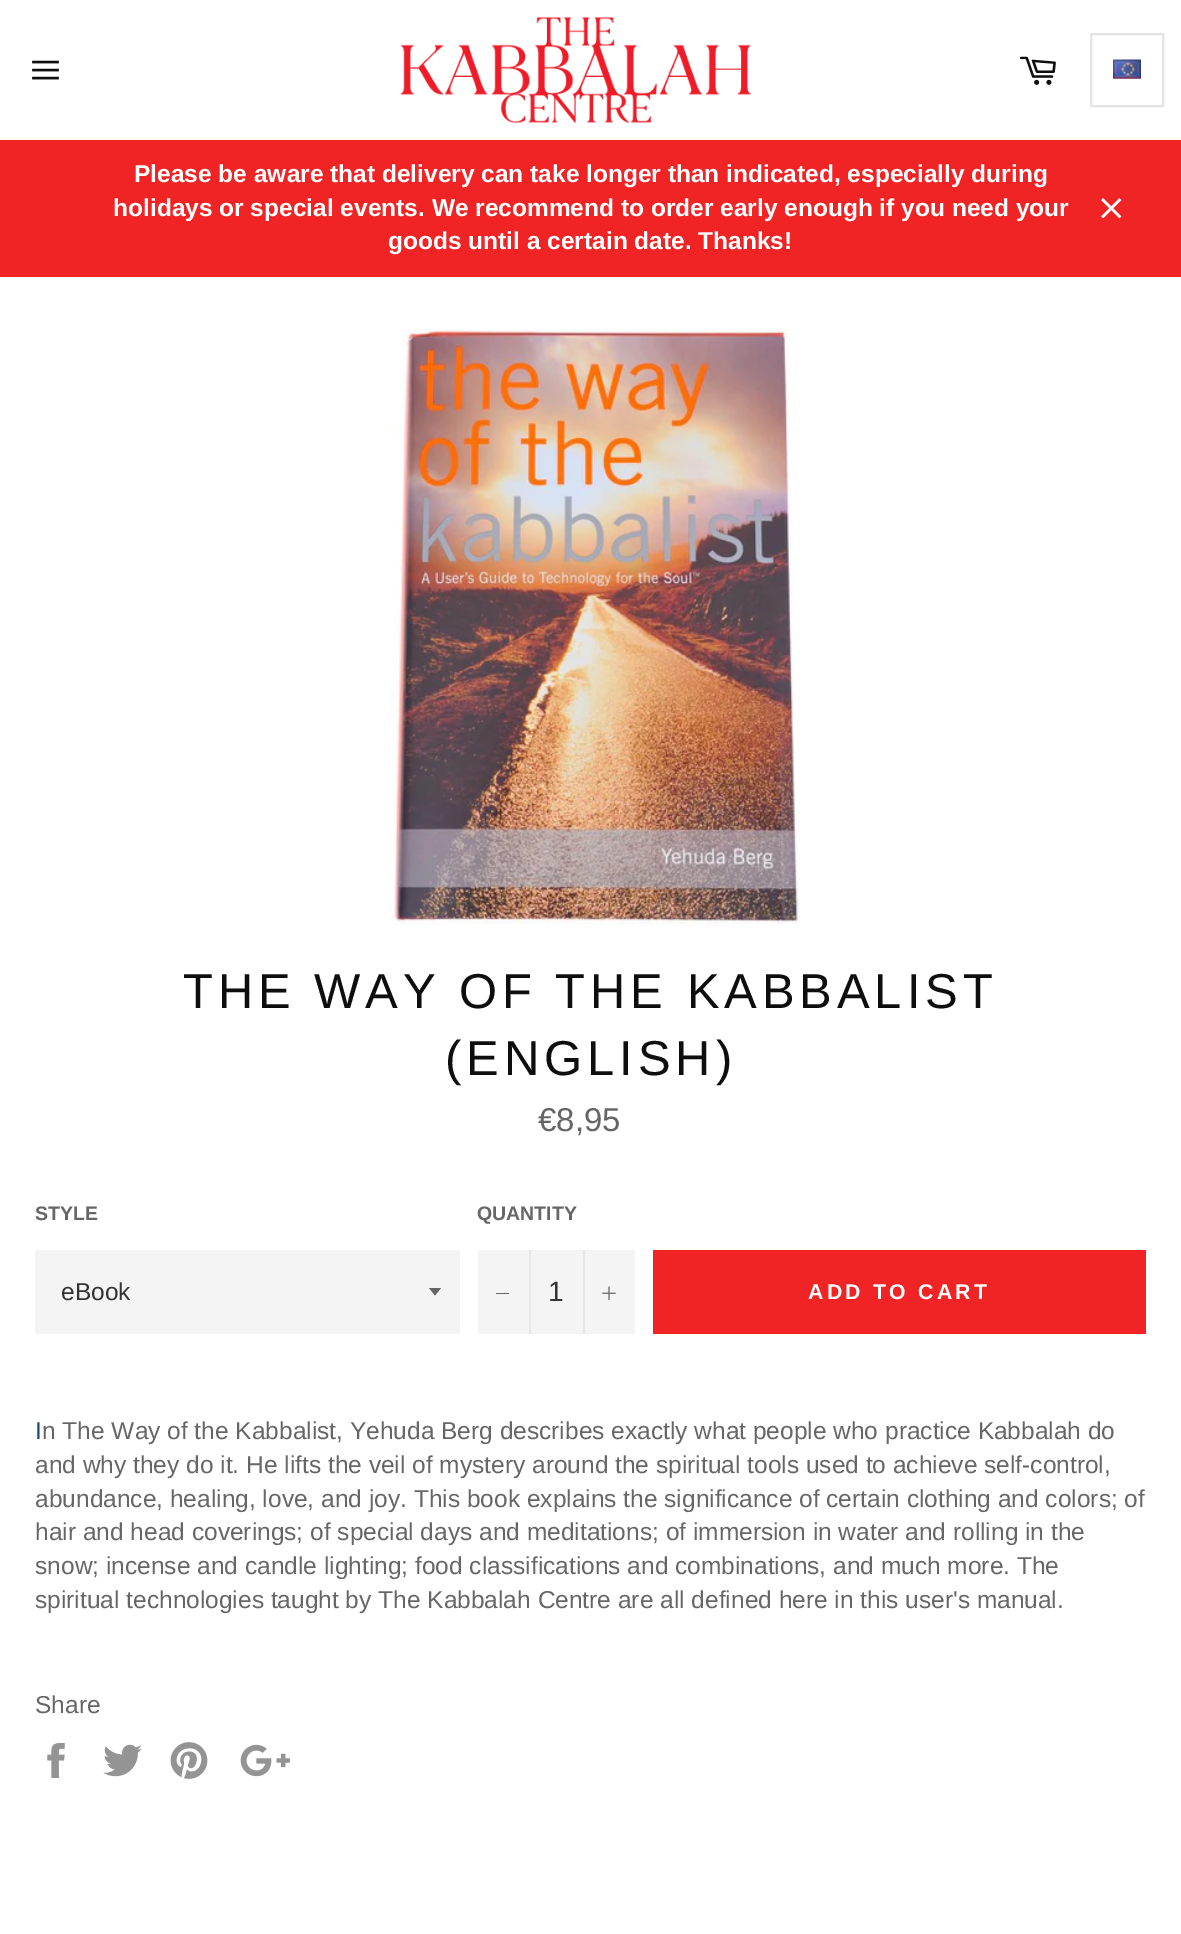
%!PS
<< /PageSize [1181 1934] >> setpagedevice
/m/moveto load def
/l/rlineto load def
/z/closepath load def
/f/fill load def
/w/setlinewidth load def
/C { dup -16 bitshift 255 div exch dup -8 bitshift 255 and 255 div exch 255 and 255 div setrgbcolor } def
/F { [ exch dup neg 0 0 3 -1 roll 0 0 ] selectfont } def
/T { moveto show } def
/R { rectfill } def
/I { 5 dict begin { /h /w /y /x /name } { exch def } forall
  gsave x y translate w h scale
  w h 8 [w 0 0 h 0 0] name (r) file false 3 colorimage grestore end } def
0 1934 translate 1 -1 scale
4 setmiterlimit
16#FFFFFF C
0 0 1181 1934 R
(1.rgb) 32 60 27 20 I
(2.rgb) 400 17 351 106 I
(3.rgb) 1020 56 36 29 I
16#E4E4E4 C
2 w
1091 34 72 72 rectstroke
(4.rgb) 1113 59 28 20 I
16#F02325 C
0 140 1181 137 R
/LiberationSans-Bold 24.5 F
16#FFFFFF C
(Please be aware that delivery can take longer than indicated, especially during) 134 182 T
(holidays or special events. We recommend to order early enough if you need your) 113 216 T
(goods until a certain date. Thanks!) 388 249 T
(5.rgb) 1101 198 21 21 I
(6.rgb) 390 329 411 595 I
/LiberationSans-Regular 49 F
16#0E0E0E C
183 1008 m 4.9 0 (THE WAY OF THE KABBALIST) ashow
445 1075 m 4.9 0 (\(ENGLISH\)) ashow
/LiberationSans-Regular 33 F
16#666666 C
(€8,95) 538 1131 T
/LiberationSans-Bold 19.5 F
(STYLE) 35 1220 T
16#F4F4F4 C
35 1250 425 84 R
16#666666 C
429 1288 m 6 7.5 l 6 -7.5 l z f
/LiberationSans-Regular 24.5 F
16#333333 C
(eBook) 61 1300 T
/LiberationSans-Bold 19.5 F
16#666666 C
(QUANTITY) 477 1220 T
16#F4F4F4 C
478 1250 157 84 R
16#E7E7E7 C
529 1250 2 84 R
16#666666 C
496 1293 13 1 R
/LiberationSans-Regular 28 F
16#333333 C
(1) 548 1301 T
16#E7E7E7 C
583 1250 2 84 R
(7.rgb) 602 1286 14 14 I
16#F02325 C
653 1250 493 84 R
/LiberationSans-Bold 21.25 F
16#FFFFFF C
808 1299 m 3.25 0 (ADD TO CART) ashow
/LiberationSans-Regular 24.5 F
16#1F497D C
(I) 35 1439 T
16#666666 C
(n The Way of the Kabbalist, Yehuda Berg describes exactly what people who practice Kabbalah do) 42 1439 T
(and why they do it. He lifts the veil of mystery around the spiritual tools used to achieve self-control,) 35 1473 T
(abundance, healing, love, and joy. This book explains the significance of certain clothing and colors; of) 35 1507 T
(hair and head coverings; of special days and meditations; of immersion in water and rolling in the) 35 1540 T
(snow; incense and candle lighting; food classifications and combinations, and much more. The) 35 1574 T
(spiritual technologies taught by The Kabbalah Centre are all defined here in this user's manual.) 35 1608 T
(Share) 35 1713 T
(8.rgb) 47 1743 18 35 I
(9.rgb) 103 1744 39 33 I
(10.rgb) 170 1742 38 37 I
(11.rgb) 240 1744 50 33 I
showpage
